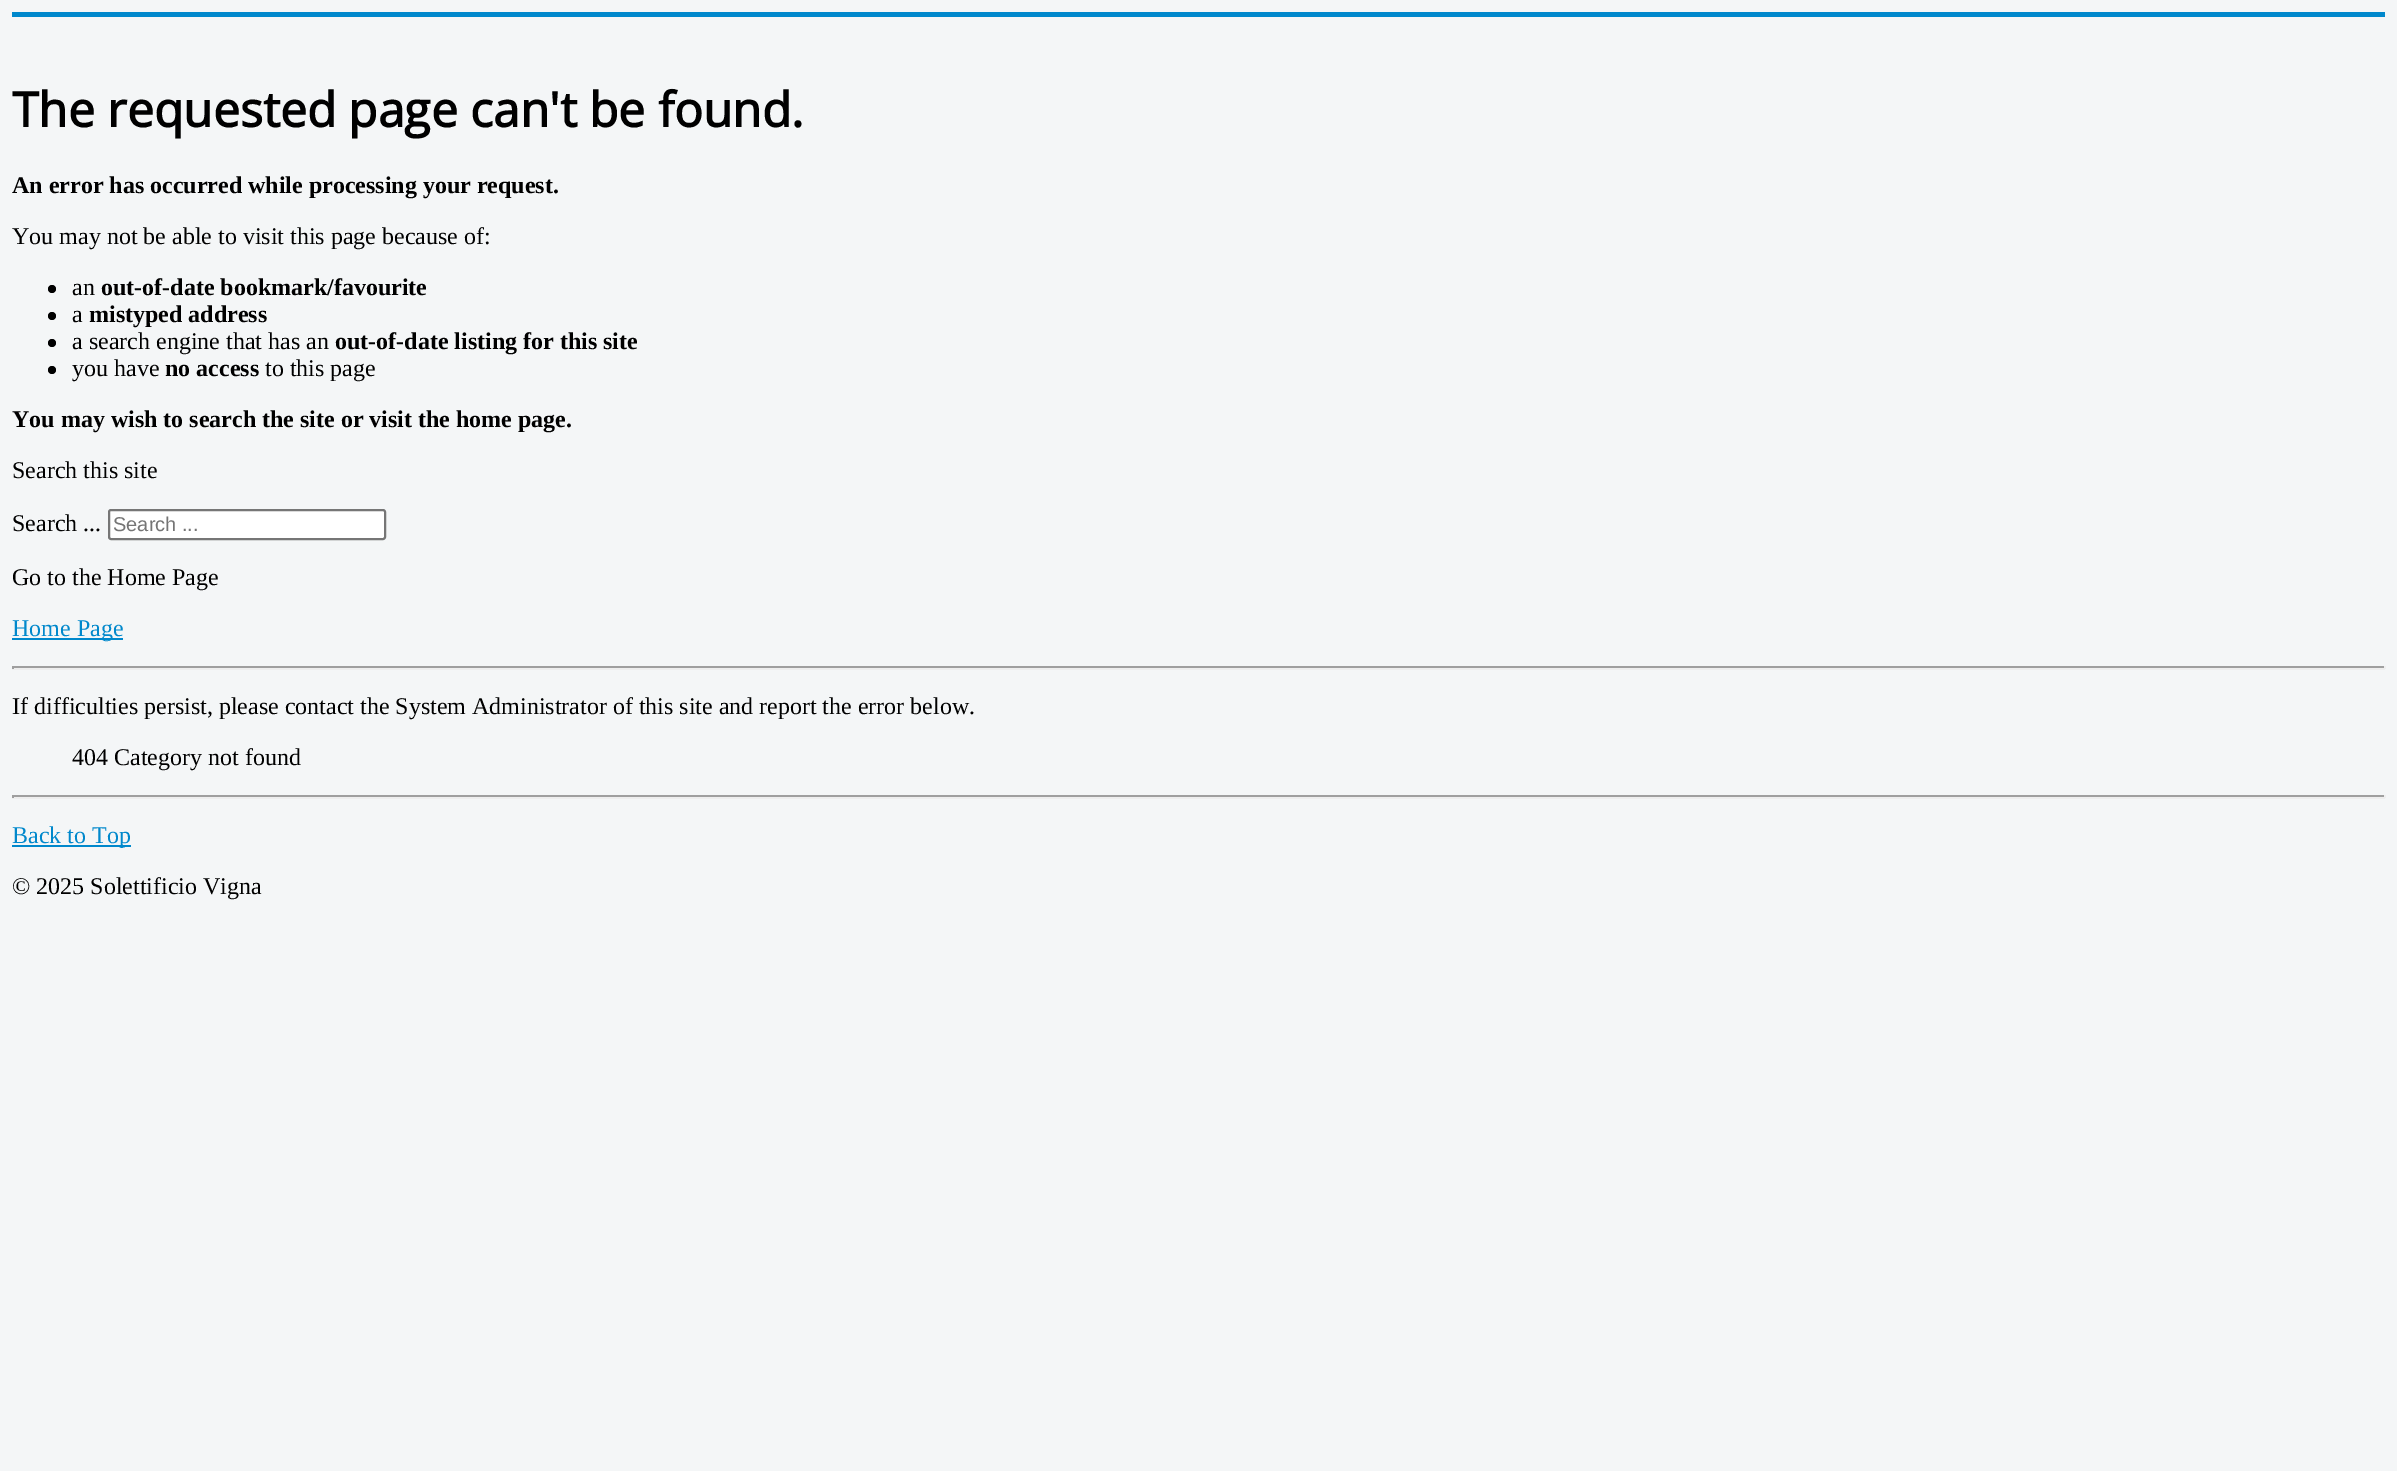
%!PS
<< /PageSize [2397 1471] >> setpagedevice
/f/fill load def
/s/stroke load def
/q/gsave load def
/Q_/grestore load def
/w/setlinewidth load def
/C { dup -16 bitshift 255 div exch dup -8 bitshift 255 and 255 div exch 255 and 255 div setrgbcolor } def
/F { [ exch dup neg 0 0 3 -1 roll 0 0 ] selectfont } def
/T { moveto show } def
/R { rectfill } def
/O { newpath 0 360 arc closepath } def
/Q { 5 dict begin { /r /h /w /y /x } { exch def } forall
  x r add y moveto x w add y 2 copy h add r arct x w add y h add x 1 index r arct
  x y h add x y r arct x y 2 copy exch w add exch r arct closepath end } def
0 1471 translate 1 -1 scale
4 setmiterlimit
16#F4F6F7 C
0 0 2397 1471 R
16#0088CC C
12 12 2373 5 R
/OpenSans-Bold 48 F
16#000000 C
(The requested page can't be found.) 12 127 T
/LiberationSerif-Bold 24 F
(An error has occurred while processing your request.) 12 193 T
/LiberationSerif-Regular 24 F
(You may not be able to visit this page because of:) 12 244 T
52 289 4 O f
(an) 72 295 T
/LiberationSerif-Bold 24 F
(out-of-date bookmark/favourite) 101 295 T
52 316 4 O f
/LiberationSerif-Regular 24 F
(a) 72 322 T
/LiberationSerif-Bold 24 F
(mistyped address) 89 322 T
52 343 4 O f
/LiberationSerif-Regular 24 F
(a search engine that has an) 72 349 T
/LiberationSerif-Bold 24 F
(out-of-date listing for this site) 335 349 T
52 370 4 O f
/LiberationSerif-Regular 24 F
(you have) 72 376 T
/LiberationSerif-Bold 24 F
(no access) 165 376 T
/LiberationSerif-Regular 24 F
(to this page) 265 376 T
/LiberationSerif-Bold 24 F
(You may wish to search the site or visit the home page.) 12 427 T
/LiberationSerif-Regular 24 F
(Search this site) 12 478 T
(Search ...) 12 531 T
16#FFFFFF C
109 510 276 29 2 Q q f Q_
16#767676 C
2 w
s
/LiberationSans-Regular 20 F
16#757575 C
(Search ...) 113 531 T
/LiberationSerif-Regular 24 F
16#000000 C
(Go to the Home Page) 12 585 T
16#0088CC C
12 638 111 2 R
(Home Page) 12 636 T
16#9F9F9F C
12 666 2373 2 R
16#EEEEEE C
2384 666 2 3 R
12 668 2373 2 R
16#9F9F9F C
12 666 2 3 R
16#000000 C
(If difficulties persist, please contact the System Administrator of this site and report the error below.) 12 714 T
(404 Category not found) 72 765 T
16#9F9F9F C
12 795 2373 2 R
16#EEEEEE C
2384 795 2 3 R
12 797 2373 2 R
16#9F9F9F C
12 795 2 3 R
16#0088CC C
12 845 119 2 R
(Back to Top) 12 843 T
16#000000 C
(© 2025 Solettificio Vigna) 12 894 T
showpage
